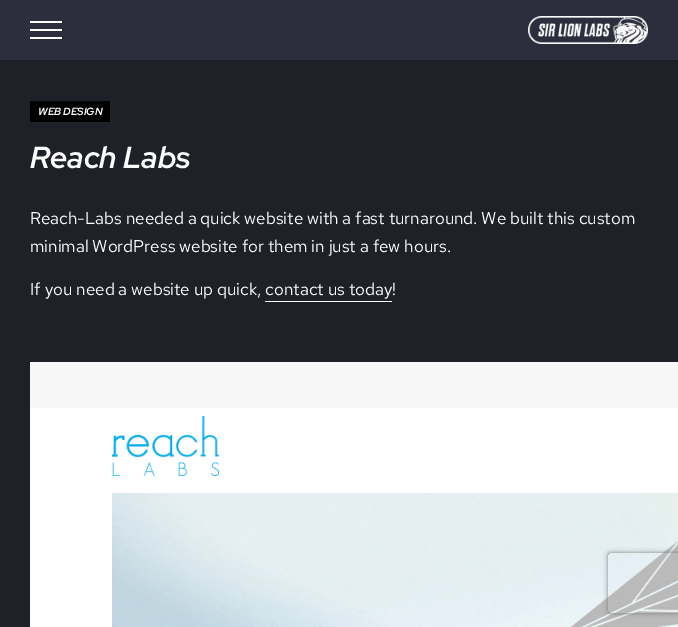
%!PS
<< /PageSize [678 627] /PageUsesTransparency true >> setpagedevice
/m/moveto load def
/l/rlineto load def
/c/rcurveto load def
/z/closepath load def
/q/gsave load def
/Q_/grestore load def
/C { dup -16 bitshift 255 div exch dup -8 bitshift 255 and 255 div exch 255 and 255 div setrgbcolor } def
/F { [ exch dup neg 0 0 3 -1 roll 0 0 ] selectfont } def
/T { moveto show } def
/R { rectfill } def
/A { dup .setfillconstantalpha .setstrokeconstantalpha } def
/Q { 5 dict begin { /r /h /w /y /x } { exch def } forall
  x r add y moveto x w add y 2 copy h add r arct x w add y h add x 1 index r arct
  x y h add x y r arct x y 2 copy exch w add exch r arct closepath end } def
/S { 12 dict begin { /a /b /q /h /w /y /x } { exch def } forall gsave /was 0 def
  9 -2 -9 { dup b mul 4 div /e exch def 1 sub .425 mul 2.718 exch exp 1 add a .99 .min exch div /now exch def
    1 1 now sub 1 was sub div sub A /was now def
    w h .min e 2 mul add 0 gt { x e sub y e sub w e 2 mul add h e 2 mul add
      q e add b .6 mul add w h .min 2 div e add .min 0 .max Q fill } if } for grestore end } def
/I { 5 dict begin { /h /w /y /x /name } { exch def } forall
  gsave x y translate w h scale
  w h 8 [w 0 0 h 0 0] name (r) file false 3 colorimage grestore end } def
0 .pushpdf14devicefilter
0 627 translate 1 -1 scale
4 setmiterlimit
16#1F2129 C
0 0 678 627 R
16#2C2E3D C
0 0 678 60 R
16#FFFFFF C
30 29 32 2 R
30 21 32 2 R
30 37 32 2 R
(1.rgb) 528 16 120 28 I
16#000000 C
30 101 80 21 R
/RedHatDisplay-BoldItalic 10.5 F
16#FFFFFF C
(WEB DESIGN) 38 115 T
/RedHatDisplay-BoldItalic 30.5 F
(Reach Labs) 30 168 T
/RedHatText-Regular 17 F
(Reach-Labs needed a quick website with a fast turnaround. We built this custom) 30 224 T
(minimal WordPress website for them in just a few hours.) 30 252 T
(If you need a website up quick, contact us today!) 30 295 T
265 301 127 1 R
(2.rgb) 30 362 648 265 I
q
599 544 m 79 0 l 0 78 l -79 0 l z 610 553 m 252 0 l 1 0 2 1 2 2 c 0 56 l 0 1 -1 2 -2 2 c -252 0 l -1 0 -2 -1 -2 -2 c 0 -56 l 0 -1 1 -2 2 -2 c z eoclip newpath
16#808080 C
608 553 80 60 2 2.5 1 S
Q_
.poppdf14devicefilter showpage
